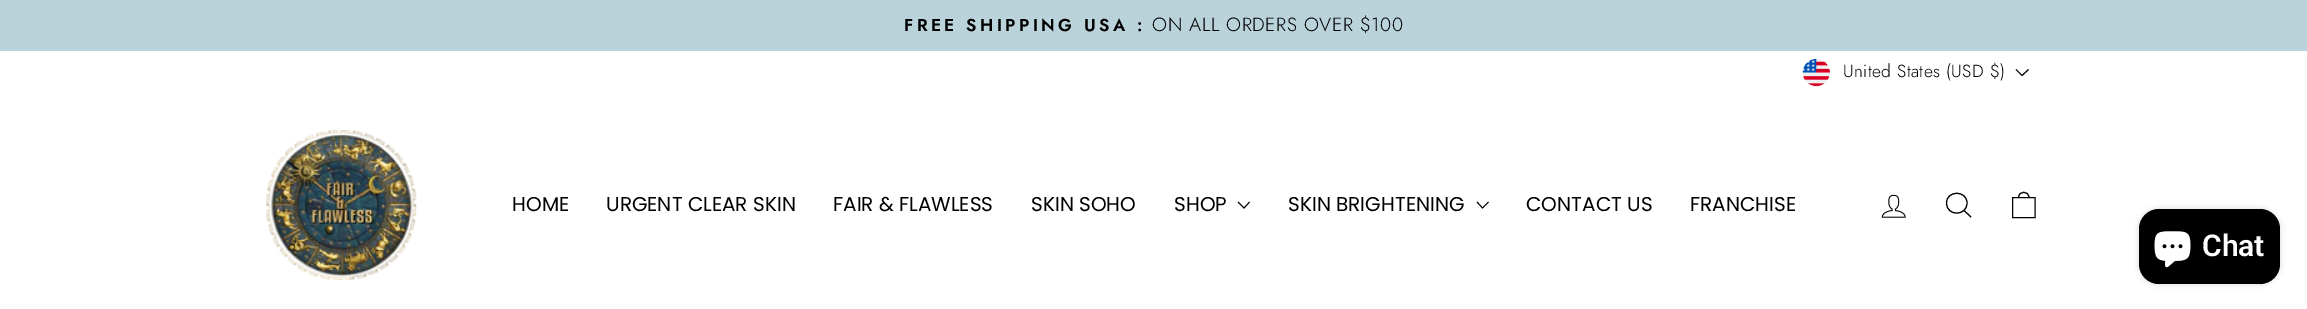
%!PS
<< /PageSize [2307 309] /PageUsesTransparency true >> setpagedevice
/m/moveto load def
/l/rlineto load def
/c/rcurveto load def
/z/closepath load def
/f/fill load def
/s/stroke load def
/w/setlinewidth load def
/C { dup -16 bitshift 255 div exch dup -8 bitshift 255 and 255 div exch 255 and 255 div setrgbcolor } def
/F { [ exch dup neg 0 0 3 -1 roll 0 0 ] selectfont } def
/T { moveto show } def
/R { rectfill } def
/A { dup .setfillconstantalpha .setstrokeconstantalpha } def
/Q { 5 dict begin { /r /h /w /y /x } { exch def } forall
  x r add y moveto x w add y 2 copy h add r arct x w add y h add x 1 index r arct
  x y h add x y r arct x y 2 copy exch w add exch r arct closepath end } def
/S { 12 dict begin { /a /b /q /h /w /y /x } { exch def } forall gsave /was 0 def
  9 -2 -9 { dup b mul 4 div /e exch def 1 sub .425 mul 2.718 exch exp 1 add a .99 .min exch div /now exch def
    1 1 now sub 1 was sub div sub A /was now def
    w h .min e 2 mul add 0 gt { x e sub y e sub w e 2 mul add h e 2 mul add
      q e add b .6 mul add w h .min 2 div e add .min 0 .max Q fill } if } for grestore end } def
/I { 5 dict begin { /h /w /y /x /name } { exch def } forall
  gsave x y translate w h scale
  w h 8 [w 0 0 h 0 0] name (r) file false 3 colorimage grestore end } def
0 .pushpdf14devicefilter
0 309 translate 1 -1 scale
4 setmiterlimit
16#FFFFFF C
0 0 2307 309 R
16#BAD2DA C
0 0 2307 51 R
/Jost-SemiBold 17.25 F
16#000000 C
904 31 m 3.4 0 (FREE SHIPPING USA :) ashow
/Jost-Light 19.1 F
1152 31 m .6 0 (ON ALL ORDERS OVER $100) ashow
(1.rgb) 1802 58 28 29 I
/Jost-Light 17.5 F
1843 77 m .4 0 (United States \(USD $\)) ashow
2016 69.5 m 6 6 l 6.5 -6 l s
(2.rgb) 266 130 151 150 I
/Poppins-Regular 20 F
(HOME) 512 211 T
(URGENT CLEAR SKIN) 606 211 T
(FAIR & FLAWLESS) 833 211 T
(SKIN SOHO) 1031 211 T
(SHOP) 1174 211 T
.9 w
1238 202 m 6 6 l 5.5 -6 l s
(SKIN BRIGHTENING) 1288 211 T
1477 202 m 5.5 6 l 6 -6 l s
(CONTACT US) 1526 211 T
(FRANCHISE) 1690 211 T
(3.rgb) 1881 194 25 24 I
1.1 w
1967 203 m 0 13.5 -20.5 13.5 -20.5 0 c 0 -13 20.5 -13 20.5 0 c z 1971 217 m -7 -6.5 l s
2012.5 197.5 m 22.5 0 l 0 20 l -22.5 0 l z 2018.5 197.5 m 0 -7 10.5 -7 10.5 0 c s
2139 209 141 75 20 3 .15 S
2139 209 141 75 20 Q f
(4.rgb) 2154 231 37 37 I
/Roboto-SemiBold 30 F
16#FFFFFF C
(Chat) 2202 256 T
.poppdf14devicefilter showpage
